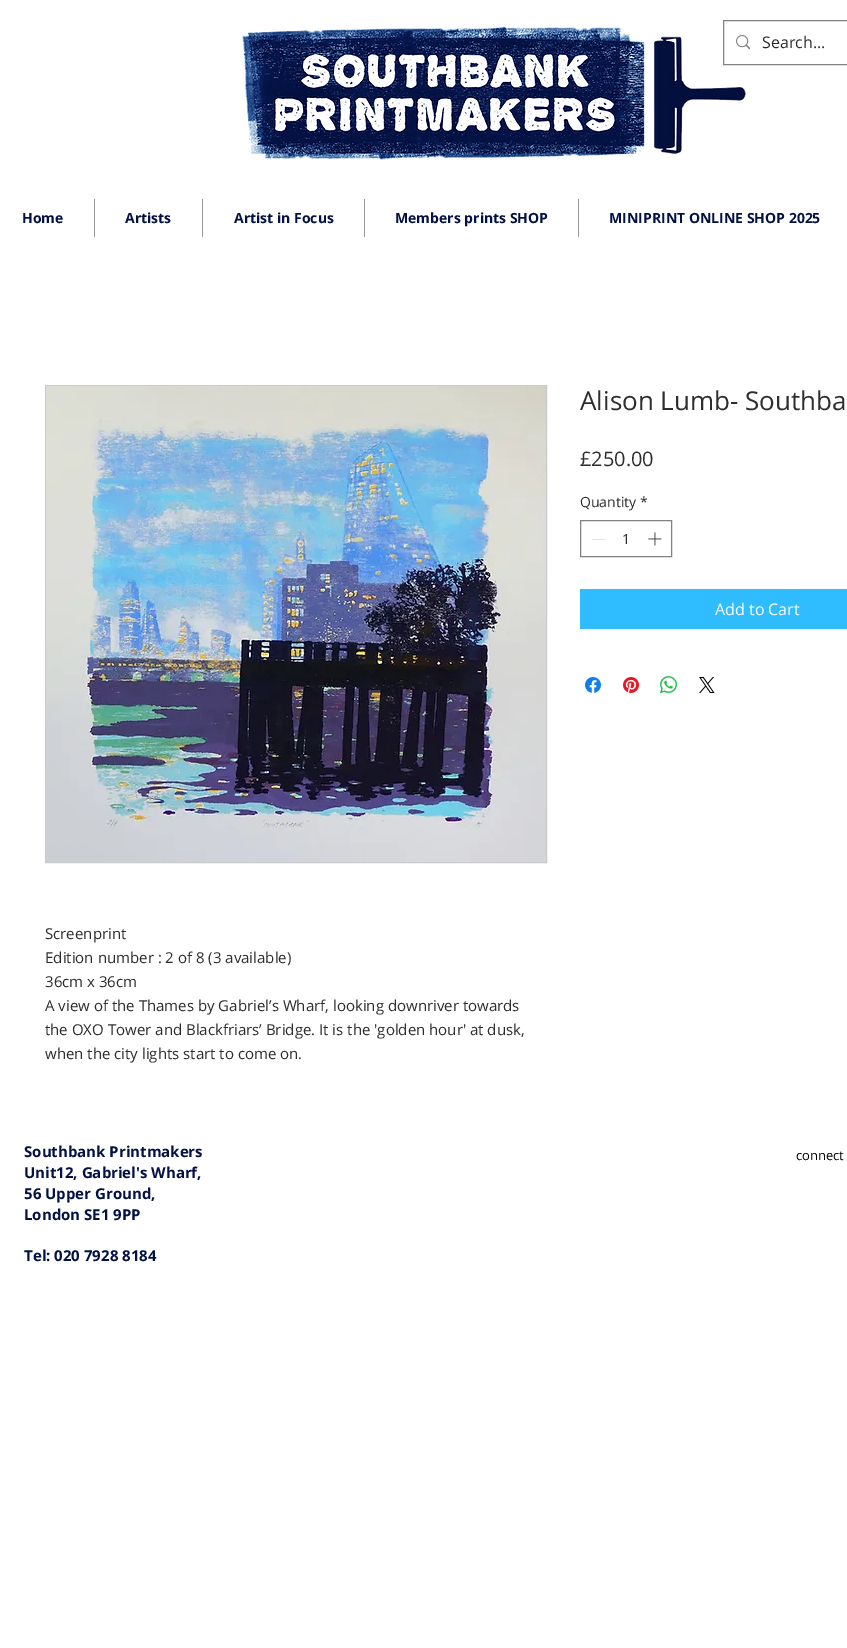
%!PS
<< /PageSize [847 1648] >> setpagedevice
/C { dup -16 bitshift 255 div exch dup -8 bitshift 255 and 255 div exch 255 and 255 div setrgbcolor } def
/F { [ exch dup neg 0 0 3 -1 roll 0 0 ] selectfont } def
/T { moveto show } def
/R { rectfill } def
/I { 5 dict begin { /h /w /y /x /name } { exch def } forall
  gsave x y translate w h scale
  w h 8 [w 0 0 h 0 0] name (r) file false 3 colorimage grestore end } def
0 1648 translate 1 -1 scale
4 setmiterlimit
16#FFFFFF C
0 0 847 1648 R
(1.rgb) 241 26 505 134 I
16#828282 C
723.5 20.5 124 44 rectstroke
(2.rgb) 736 35 14 15 I
/OpenSans-Regular 16 F
16#2F2E2E C
(Search...) 762 48 T
/OpenSans-Bold 14 F
16#031144 C
(Home) 22 223 T
16#979797 C
94 199 1 38 R
16#031144 C
(Artists) 125 223 T
16#979797 C
202 199 1 38 R
16#031144 C
(Artist in Focus) 234 223 T
16#979797 C
364 199 1 38 R
16#031144 C
(Members prints SHOP) 395 223 T
16#979797 C
578 199 1 38 R
16#031144 C
(MINIPRINT ONLINE SHOP 2025) 609 223 T
/OpenSans-Regular 26 F
16#2F2E2E C
(Alison Lumb- Southba) 580 410 T
/OpenSans-Regular 20 F
(£250.00) 580 466 T
/OpenSans-Regular 14 F
(Quantity) 580 507 T
(*) 640 507 T
16#828282 C
580.5 520.5 91 36 rectstroke
16#E3E3E3 C
592 539 13 1 R
16#2F2E2E C
(1) 622 544 T
(3.rgb) 648 532 14 14 I
16#30BDFF C
580 589 267 40 R
/OpenSans-Regular 16 F
16#FFFFFF C
(Add to Cart) 715 615 T
(4.rgb) 585 677 16 16 I
(5.rgb) 623 677 16 16 I
(6.rgb) 660 676 17 17 I
(7.rgb) 699 677 16 16 I
16#CBCBCB C
45.5 385.5 501 477 rectstroke
(8.rgb) 46 386 500 476 I
/OpenSans-Regular 15 F
16#2F2E2E C
(Screenprint) 45 939 T
(Edition number : 2 of 8 \(3 available\)) 45 963 T
(36cm x 36cm) 45 987 T
(A view of the Thames by Gabriel’s Wharf, looking downriver towards) 45 1011 T
(the OXO Tower and Blackfriars’ Bridge. It is the 'golden hour' at dusk,) 45 1035 T
(when the city lights start to come on.) 45 1059 T
/OpenSans-Bold 15 F
16#031144 C
(Southbank Printmakers) 24 1157 T
(Unit12, Gabriel's Wharf,) 24 1178 T
(56 Upper Ground,) 24 1199 T
(London SE1 9PP) 24 1220 T
(Tel: 020 7928 8184) 24 1261 T
/OpenSans-Regular 13 F
16#000000 C
(connect) 796 1160 T
showpage
